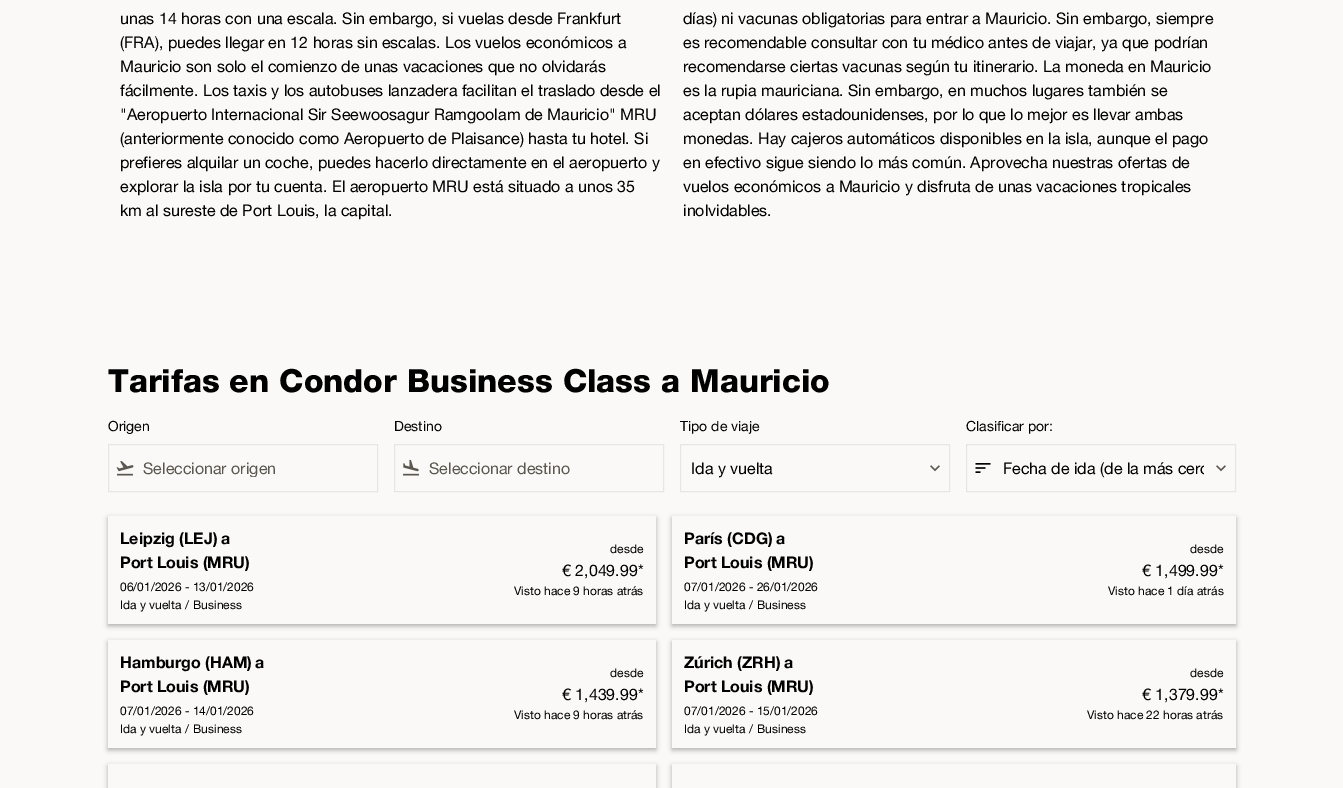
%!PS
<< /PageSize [1343 788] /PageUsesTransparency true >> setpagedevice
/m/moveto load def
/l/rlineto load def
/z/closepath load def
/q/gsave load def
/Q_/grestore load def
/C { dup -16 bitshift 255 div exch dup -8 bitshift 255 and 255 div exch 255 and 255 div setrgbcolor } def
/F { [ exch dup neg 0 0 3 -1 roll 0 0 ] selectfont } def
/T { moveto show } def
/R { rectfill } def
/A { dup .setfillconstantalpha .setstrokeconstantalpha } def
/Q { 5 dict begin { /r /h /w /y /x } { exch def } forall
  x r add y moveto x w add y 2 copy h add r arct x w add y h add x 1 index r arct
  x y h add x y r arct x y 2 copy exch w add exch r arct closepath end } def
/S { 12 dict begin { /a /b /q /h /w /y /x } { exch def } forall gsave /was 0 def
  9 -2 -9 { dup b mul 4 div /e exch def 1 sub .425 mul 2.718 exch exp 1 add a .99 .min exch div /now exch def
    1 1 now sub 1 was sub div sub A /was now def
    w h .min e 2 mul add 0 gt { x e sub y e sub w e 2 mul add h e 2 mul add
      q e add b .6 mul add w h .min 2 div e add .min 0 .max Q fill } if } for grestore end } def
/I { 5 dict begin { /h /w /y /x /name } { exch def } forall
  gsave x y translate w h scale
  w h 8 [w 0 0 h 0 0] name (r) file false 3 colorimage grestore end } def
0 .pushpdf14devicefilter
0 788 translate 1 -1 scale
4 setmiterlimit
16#FAF9F7 C
0 0 1343 788 R
/HelveticaNeue-Regular 16 F
16#000000 C
(unas 14 horas con una escala. Sin embargo, si vuelas desde Frankfurt) 120 24 T
(\(FRA\), puedes llegar en 12 horas sin escalas. Los vuelos económicos a) 120 48 T
(Mauricio son solo el comienzo de unas vacaciones que no olvidarás) 120 72 T
(fácilmente. Los taxis y los autobuses lanzadera facilitan el traslado desde el) 120 96 T
("Aeropuerto Internacional Sir Seewoosagur Ramgoolam de Mauricio" MRU) 120 120 T
(\(anteriormente conocido como Aeropuerto de Plaisance\) hasta tu hotel. Si) 120 144 T
(prefieres alquilar un coche, puedes hacerlo directamente en el aeropuerto y) 120 168 T
(explorar la isla por tu cuenta. El aeropuerto MRU está situado a unos 35) 120 192 T
(km al sureste de Port Louis, la capital.) 120 216 T
(días\) ni vacunas obligatorias para entrar a Mauricio. Sin embargo, siempre) 683 24 T
(es recomendable consultar con tu médico antes de viajar, ya que podrían) 683 48 T
(recomendarse ciertas vacunas según tu itinerario. La moneda en Mauricio) 683 72 T
(es la rupia mauriciana. Sin embargo, en muchos lugares también se) 683 96 T
(aceptan dólares estadounidenses, por lo que lo mejor es llevar ambas) 683 120 T
(monedas. Hay cajeros automáticos disponibles en la isla, aunque el pago) 683 144 T
(en efectivo sigue siendo lo más común. Aprovecha nuestras ofertas de) 683 168 T
(vuelos económicos a Mauricio y disfruta de unas vacaciones tropicales) 683 192 T
(inolvidables.) 683 216 T
/HelveticaNeue-ExtraBold 32 F
(Tarifas en Condor Business Class a Mauricio) 108 392 T
/HelveticaNeue-Regular 14 F
(Origen) 108 431 T
16#E6E6E6 C
108.5 444.5 269 47 rectstroke
(1.rgb) 116 461 18 15 I
q
143 458 226 19 rectclip
/HelveticaNeue-Regular 16 F
16#5C5751 C
(Seleccionar origen) 143 474 T
Q_
16#000000 C
(Destino) 394 431 T
16#E6E6E6 C
394.5 444.5 269 47 rectstroke
(2.rgb) 403 459 16 17 I
/HelveticaNeue-Regular 16 F
16#5C5751 C
(Seleccionar destino) 429 474 T
/HelveticaNeue-Regular 14 F
16#000000 C
(Tipo de viaje) 680 431 T
16#E6E6E6 C
680.5 444.5 269 47 rectstroke
/HelveticaNeue-Regular 16 F
16#000000 C
(Ida y vuelta) 691 474 T
(3.rgb) 930 465 10 7 I
/HelveticaNeue-Regular 14 F
(Clasificar por:) 966 431 T
16#E6E6E6 C
966.5 444.5 269 47 rectstroke
(4.rgb) 975 463 16 10 I
q
1003 456 201 24 rectclip
/HelveticaNeue-Regular 16 F
16#000000 C
(Fecha de ida \(de la más cerc) 1003 474 T
Q_
(3.rgb) 1216 465 10 7 I
q
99 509 m 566 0 l 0 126 l -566 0 l z 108 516 m 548 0 l 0 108 l -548 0 l z eoclip newpath
16#000000 C
108 518 548 108 0 2.5 .3 S
Q_
/HelveticaNeue-Bold 16 F
16#000000 C
(Leipzig \(LEJ\)) 120 544 T
(a) 221 544 T
(Port Louis \(MRU\)) 120 568 T
/HelveticaNeue-Regular 12 F
(06/01/2026 - 13/01/2026) 120 591 T
(Ida y vuelta) 120 609 T
(/) 185 609 T
(Business) 193 609 T
(desde) 610 553 T
/HelveticaNeue-Regular 16 F
(€ 2,049.99*) 562 576 T
/HelveticaNeue-Regular 12 F
(Visto hace 9 horas atrás) 514 595 T
q
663 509 m 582 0 l 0 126 l -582 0 l z 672 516 m 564 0 l 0 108 l -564 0 l z eoclip newpath
672 518 564 108 0 2.5 .3 S
Q_
/HelveticaNeue-Bold 16 F
(París \(CDG\)) 684 544 T
(a) 776 544 T
(Port Louis \(MRU\)) 684 568 T
/HelveticaNeue-Regular 12 F
(07/01/2026 - 26/01/2026) 684 591 T
(Ida y vuelta) 684 609 T
(/) 749 609 T
(Business) 757 609 T
(desde) 1190 553 T
/HelveticaNeue-Regular 16 F
(€ 1,499.99*) 1142 576 T
/HelveticaNeue-Regular 12 F
(Visto hace 1 día atrás) 1108 595 T
q
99 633 m 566 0 l 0 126 l -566 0 l z 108 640 m 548 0 l 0 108 l -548 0 l z eoclip newpath
108 642 548 108 0 2.5 .3 S
Q_
/HelveticaNeue-Bold 16 F
(Hamburgo \(HAM\)) 120 668 T
(a) 255 668 T
(Port Louis \(MRU\)) 120 692 T
/HelveticaNeue-Regular 12 F
(07/01/2026 - 14/01/2026) 120 715 T
(Ida y vuelta) 120 733 T
(/) 185 733 T
(Business) 193 733 T
(desde) 610 677 T
/HelveticaNeue-Regular 16 F
(€ 1,439.99*) 562 700 T
/HelveticaNeue-Regular 12 F
(Visto hace 9 horas atrás) 514 719 T
q
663 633 m 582 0 l 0 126 l -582 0 l z 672 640 m 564 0 l 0 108 l -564 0 l z eoclip newpath
672 642 564 108 0 2.5 .3 S
Q_
/HelveticaNeue-Bold 16 F
(Zúrich \(ZRH\)) 684 668 T
(a) 784 668 T
(Port Louis \(MRU\)) 684 692 T
/HelveticaNeue-Regular 12 F
(07/01/2026 - 15/01/2026) 684 715 T
(Ida y vuelta) 684 733 T
(/) 749 733 T
(Business) 757 733 T
(desde) 1190 677 T
/HelveticaNeue-Regular 16 F
(€ 1,379.99*) 1142 700 T
/HelveticaNeue-Regular 12 F
(Visto hace 22 horas atrás) 1087 719 T
q
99 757 m 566 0 l 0 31 l -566 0 l z 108 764 m 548 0 l 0 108 l -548 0 l z eoclip newpath
108 766 548 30 0 2.5 .3 S
Q_
q
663 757 m 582 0 l 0 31 l -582 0 l z 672 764 m 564 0 l 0 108 l -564 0 l z eoclip newpath
672 766 564 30 0 2.5 .3 S
Q_
.poppdf14devicefilter showpage
